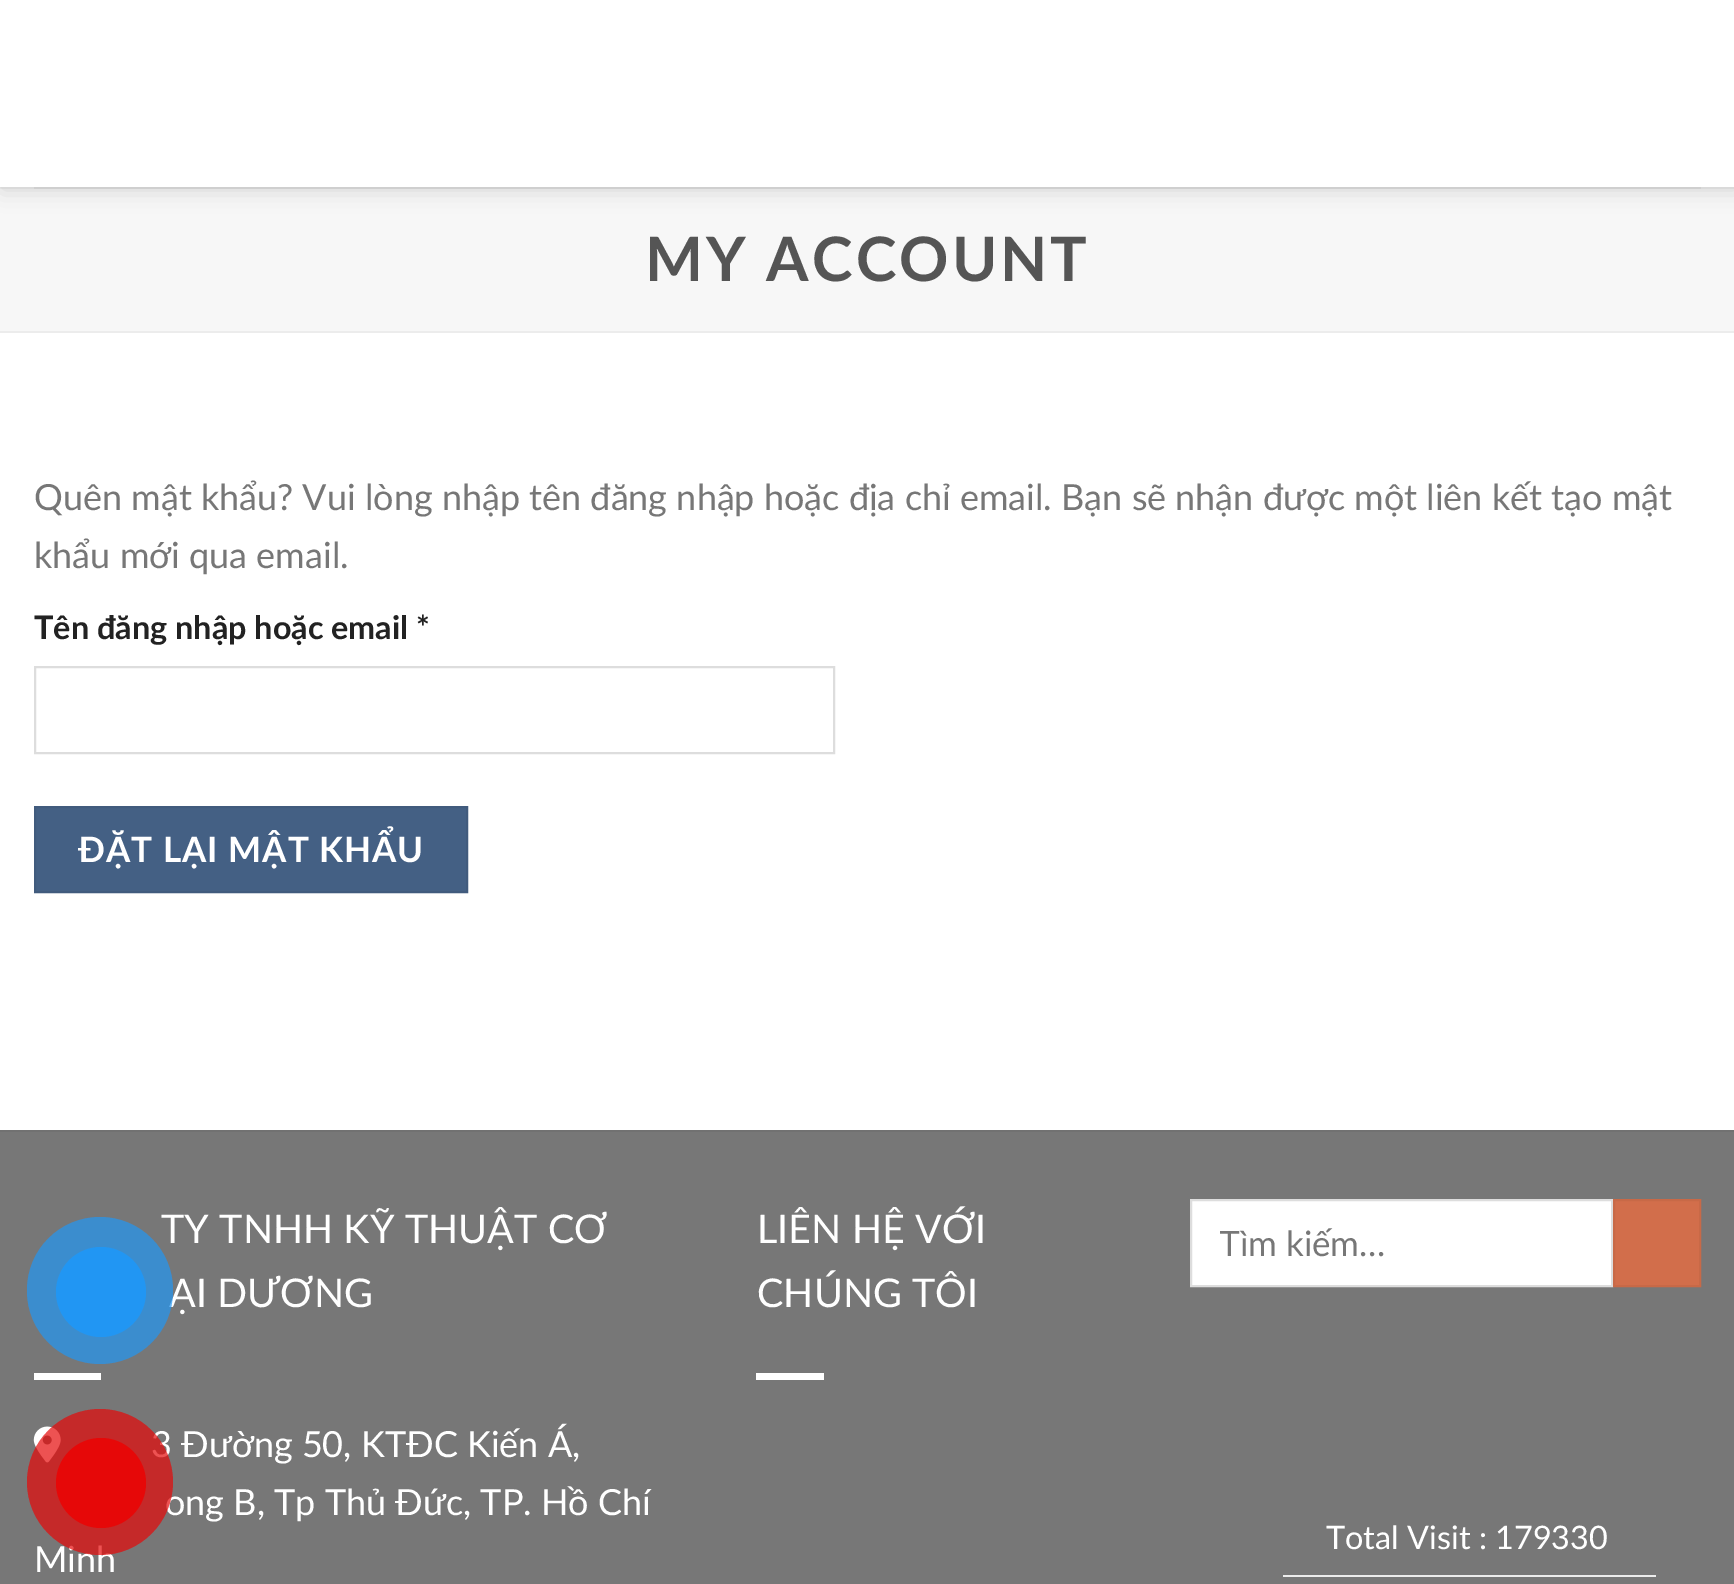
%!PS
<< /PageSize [1734 1584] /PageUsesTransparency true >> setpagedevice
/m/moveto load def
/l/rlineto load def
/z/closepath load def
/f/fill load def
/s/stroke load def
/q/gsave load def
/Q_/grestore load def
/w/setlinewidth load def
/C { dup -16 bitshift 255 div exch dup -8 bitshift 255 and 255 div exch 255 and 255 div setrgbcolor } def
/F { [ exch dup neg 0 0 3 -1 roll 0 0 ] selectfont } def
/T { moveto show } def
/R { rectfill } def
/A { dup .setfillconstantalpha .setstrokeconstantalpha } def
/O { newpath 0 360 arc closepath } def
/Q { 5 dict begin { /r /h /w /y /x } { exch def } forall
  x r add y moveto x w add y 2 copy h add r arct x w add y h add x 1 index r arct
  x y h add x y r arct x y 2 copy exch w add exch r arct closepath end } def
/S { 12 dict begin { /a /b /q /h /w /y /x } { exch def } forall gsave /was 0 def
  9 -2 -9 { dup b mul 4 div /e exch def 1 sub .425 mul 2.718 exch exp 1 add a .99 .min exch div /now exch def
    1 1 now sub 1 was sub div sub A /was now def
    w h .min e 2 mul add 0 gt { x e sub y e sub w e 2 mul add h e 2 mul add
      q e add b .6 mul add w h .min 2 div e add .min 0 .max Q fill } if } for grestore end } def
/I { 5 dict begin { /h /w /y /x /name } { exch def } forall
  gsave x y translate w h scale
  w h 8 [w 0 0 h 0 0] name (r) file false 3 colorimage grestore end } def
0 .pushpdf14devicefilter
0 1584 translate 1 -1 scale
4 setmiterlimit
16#FFFFFF C
0 0 1734 1584 R
16#F7F7F7 C
0 189 1734 142 R
16#ECECEC C
0 187 1734 2 R
q
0 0 m 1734 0 l 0 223 l -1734 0 l z 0 -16 m 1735 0 l 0 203 l -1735 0 l z eoclip newpath
16#000000 C
2 -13 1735 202 0 11 .15 S
Q_
0.9 A
16#FFFFFF C
2 186 1732 1 R
1 A
16#CFCFCF C
34 187 1667 2 R
16#ECECEC C
0 331 1734 2 R
/Lato-Bold 61.25 F
16#555555 C
645 281 m 3 0 (MY ACCOUNT) ashow
/Lato-Regular 36 F
16#777777 C
(Quên mật khẩu? Vui lòng nhập tên đăng nhập hoặc địa chỉ email. Bạn sẽ nhận được một liên kết tạo mật) 34 510 T
(khẩu mới qua email.) 34 568 T
/Lato-Bold 32.4 F
16#222222 C
(Tên đăng nhập hoặc email *) 34 639 T
16#DDDDDD C
2 w
35 667 799 86 rectstroke
16#446084 C
35 807 m 432 0 l 0 85 l -432 0 l z q f Q_
16#415B7D C
s
/Lato-Bold 35 F
16#FFFFFF C
78 862 m 1 0 (ĐẶT LẠI MẬT KHẨU) ashow
16#777777 C
0 1132 1734 452 R
16#717171 C
0 1130 1734 2 R
/Lato-Regular 39.6 F
16#FFFFFF C
(TY TNHH KỸ THUẬT CƠ) 161 1243 T
(ẠI DƯƠNG) 169 1307 T
34 1373 67 7 R
(1.rgb) 33 1426 28 37 I
/Lato-Regular 36 F
(3 Đường 50, KTĐC Kiến Á,) 151 1457 T
(ong B, Tp Thủ Đức, TP. Hồ Chí) 165 1515 T
(Minh) 34 1572 T
/Lato-Regular 39.6 F
(LIÊN HỆ VỚI) 757 1243 T
(CHÚNG TÔI) 757 1307 T
756 1373 68 7 R
1191 1200 m 421 0 l 0 86 l -421 0 l z q f Q_
16#DDDDDD C
s
q
1220 1222 357 40 rectclip
/Lato-Regular 35 F
16#777777 C
(Tìm kiếm…) 1219 1256 T
Q_
16#D26E4B C
1614 1200 m 86 0 l 0 86 l -86 0 l z q f Q_
16#C86947 C
s
16#ECECEC C
1283 1575 373 2 R
/Lato-Regular 32.4 F
16#FFFFFF C
(Total Visit : 179330) 1326 1549 T
0.7 A
16#2196F3 C
27 1217 146 147 73 Q f
1 A
101 1292 45 O f
0.7 A
16#E60808 C
100 1482 73 O f
1 A
101 1483 45 O f
.poppdf14devicefilter showpage
